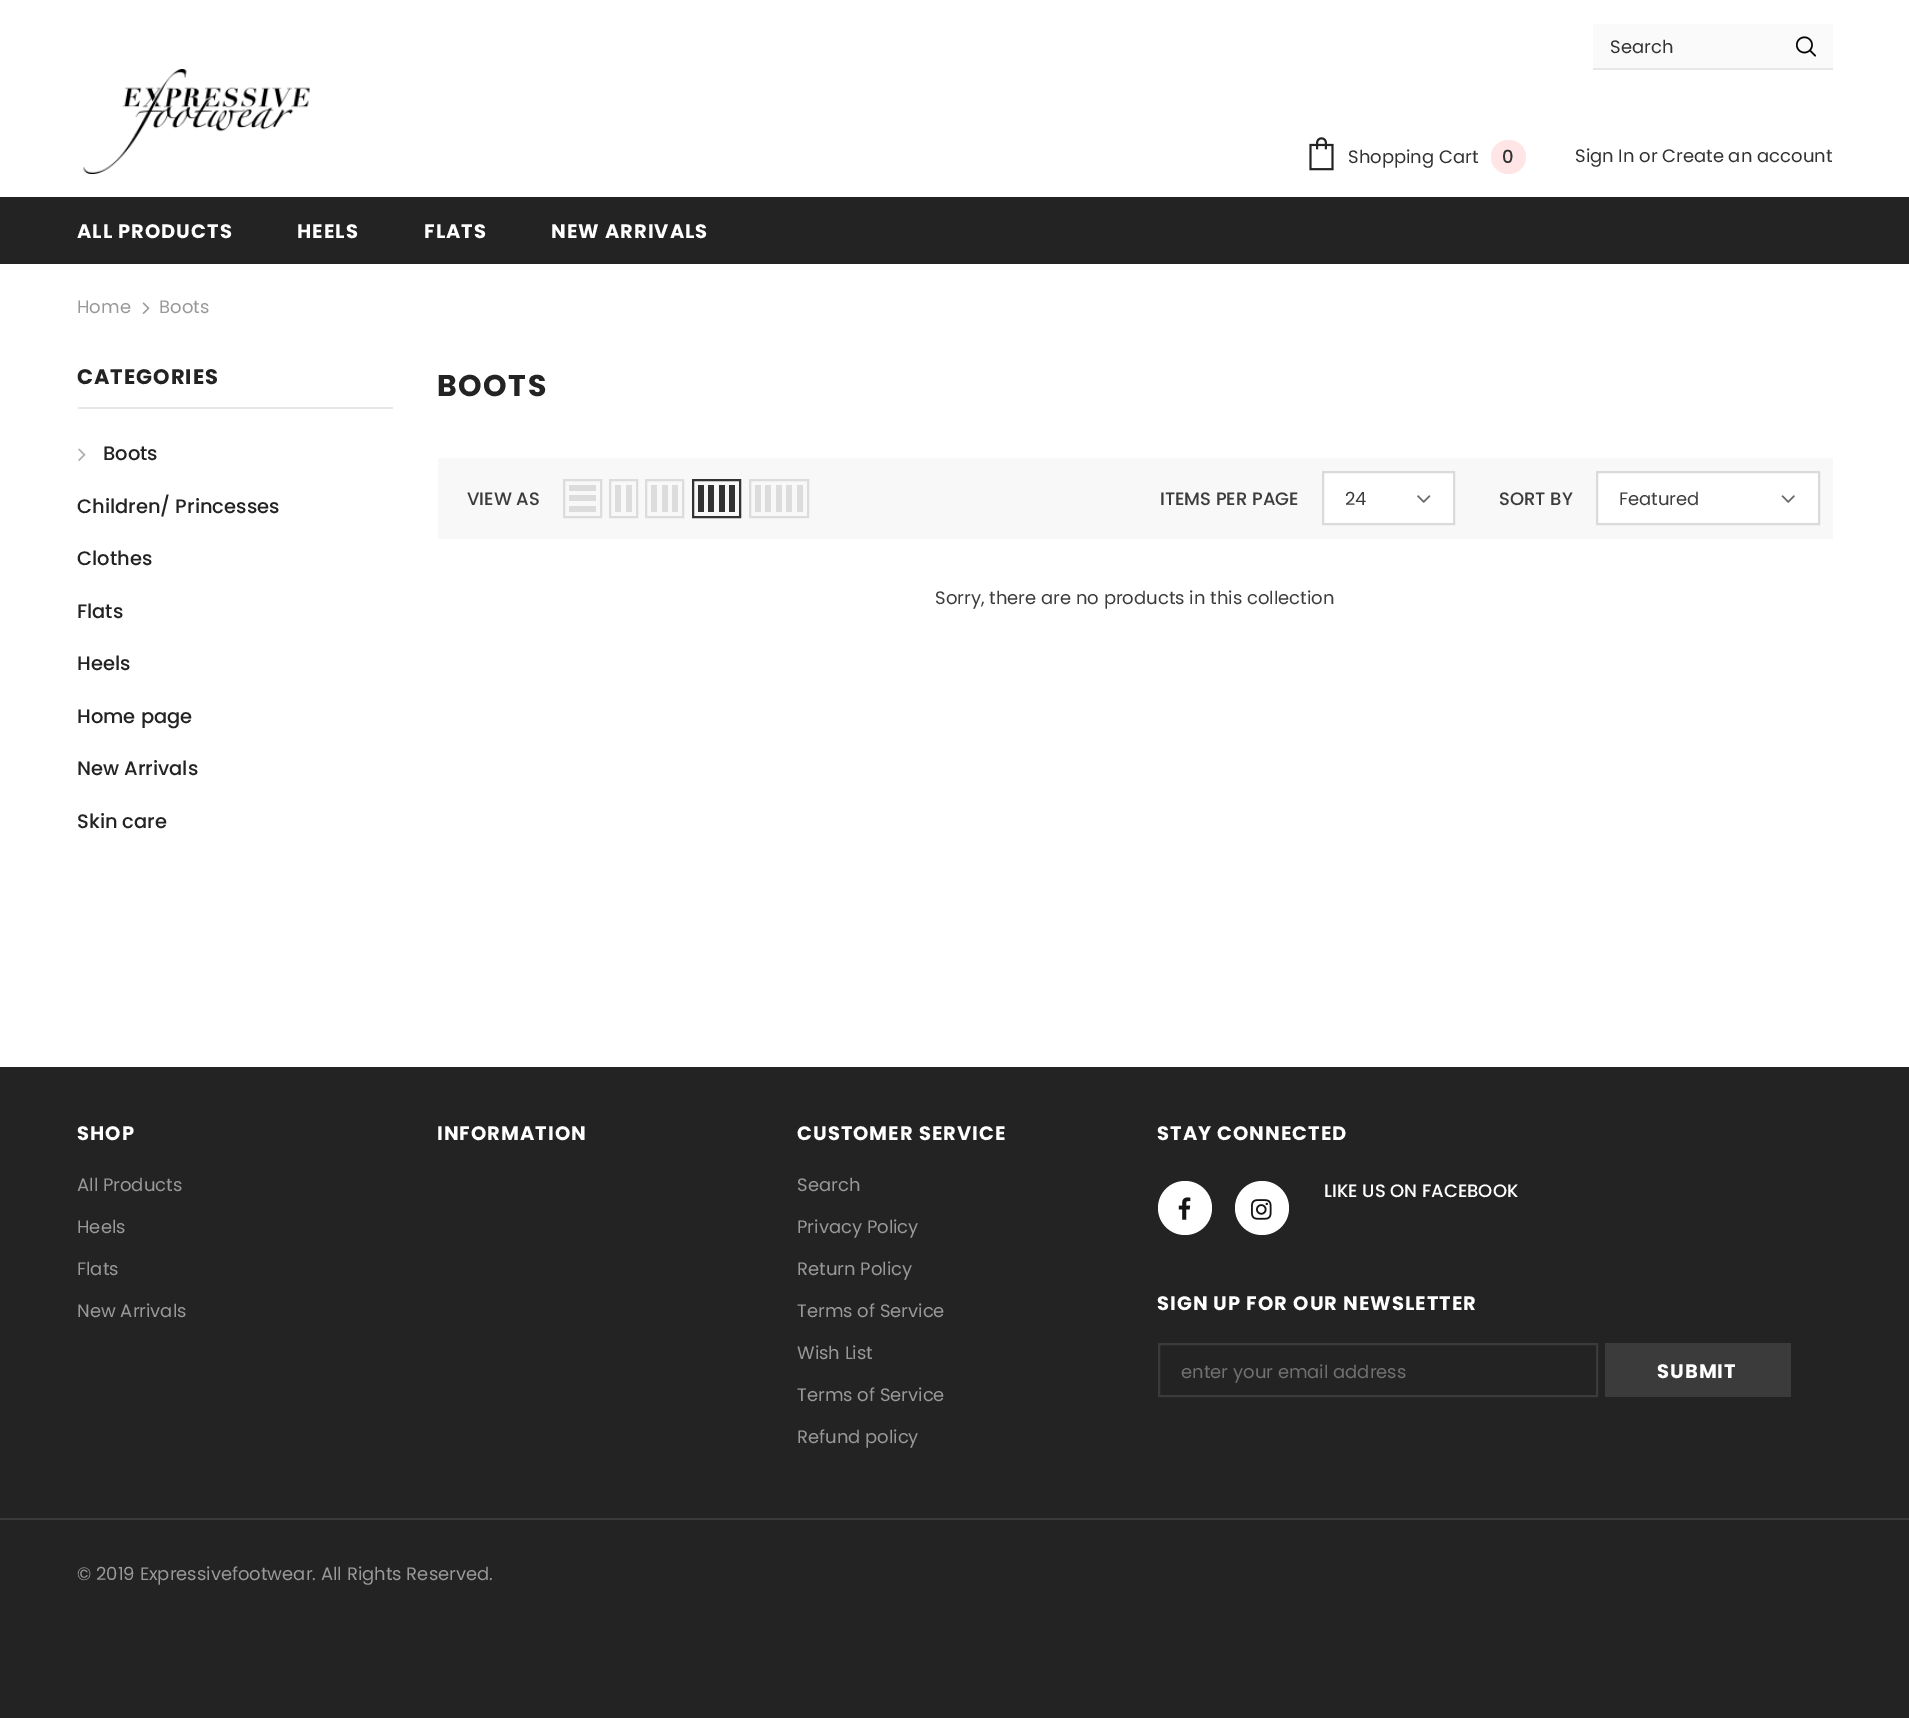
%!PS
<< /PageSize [1909 1718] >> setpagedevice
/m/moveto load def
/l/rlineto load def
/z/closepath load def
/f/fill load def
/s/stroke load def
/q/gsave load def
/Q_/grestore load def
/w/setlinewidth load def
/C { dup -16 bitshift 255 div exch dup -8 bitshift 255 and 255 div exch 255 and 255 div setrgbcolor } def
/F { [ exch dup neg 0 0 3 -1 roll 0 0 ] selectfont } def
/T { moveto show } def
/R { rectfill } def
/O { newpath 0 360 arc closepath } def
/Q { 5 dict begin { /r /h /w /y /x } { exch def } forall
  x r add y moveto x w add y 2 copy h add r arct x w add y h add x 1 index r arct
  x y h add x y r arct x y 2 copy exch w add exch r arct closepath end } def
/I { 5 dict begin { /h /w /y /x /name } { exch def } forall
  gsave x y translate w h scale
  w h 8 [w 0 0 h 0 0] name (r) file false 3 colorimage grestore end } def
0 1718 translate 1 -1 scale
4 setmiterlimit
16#FFFFFF C
0 0 1909 1718 R
16#FAFAFA C
1593 24 240 44 R
16#E7E7E7 C
1593 68 240 2 R
/Poppins-Regular 18 F
16#323232 C
(Search) 1610 53 T
(1.rgb) 1796 36 21 21 I
(2.rgb) 83 69 227 105 I
(3.rgb) 1309 137 25 34 I
(Shopping Cart) 1348 163 T
16#FFE5E5 C
1491 140 35 34 17 Q f
/Poppins-Medium 18 F
16#323232 C
(0) 1502 163 T
/Poppins-Regular 18 F
(Sign In) 1575 162 T
(or Create an account) 1639 162 T
16#232323 C
0 197 1909 67 R
/Poppins-Bold 19.5 F
16#FFFFFF C
77 238 m 1 0 (ALL PRODUCTS) ashow
297 238 m 1 0 (HEELS) ashow
424 238 m 1 0 (FLATS) ashow
551 238 m 1 0 (NEW ARRIVALS) ashow
/Poppins-Regular 18 F
16#999999 C
(Home) 77 313 T
(4.rgb) 142 302 8 12 I
(Boots) 159 313 T
16#E6E6E6 C
78 407 315 2 R
/Poppins-Bold 21 F
16#232323 C
77 384 m 1 0 (CATEGORIES) ashow
(5.rgb) 78 448 8 13 I
/Poppins-Medium 19.5 F
(Boots) 103 460 T
(Children/ Princesses) 77 513 T
(Clothes) 77 565 T
(Flats) 77 618 T
(Heels) 77 670 T
(Home page) 77 723 T
(New Arrivals) 77 775 T
(Skin care) 77 828 T
/Poppins-Bold 30 F
437 396 m 1.5 0 (BOOTS) ashow
16#F8F8F8 C
438 458 1395 81 R
/Poppins-Medium 18 F
16#3C3C3C C
(VIEW AS) 467 505 T
16#DCDCDC C
2 w
564 480 37 37 rectstroke
569 506 27 6 R
569 495 27 6 R
569 485 27 6 R
610 480 27 37 rectstroke
626 485 6 27 R
615 485 6 27 R
646 480 37 37 rectstroke
672 485 6 27 R
662 485 6 27 R
651 485 6 27 R
16#323232 C
693 480 47 37 rectstroke
729 485 6 27 R
719 485 6 27 R
708 485 6 27 R
698 485 6 27 R
16#DCDCDC C
750 480 58 37 rectstroke
797 485 6 27 R
786 485 6 27 R
776 485 6 27 R
765 485 6 27 R
755 485 6 27 R
16#3C3C3C C
(ITEMS PER PAGE) 1160 505 T
16#FFFFFF C
1323 472 m 131 0 l 0 52 l -131 0 l z q f Q_
16#DADADA C
s
/Poppins-Regular 18 F
16#3C3C3C C
(24) 1345 505 T
(6.rgb) 1417 495 14 8 I
/Poppins-Medium 18 F
(SORT BY) 1499 505 T
16#FFFFFF C
1597 472 m 222 0 l 0 52 l -222 0 l z q f Q_
16#DADADA C
s
/Poppins-Regular 18 F
16#3C3C3C C
(Featured) 1619 505 T
(7.rgb) 1781 495 14 8 I
(Sorry, there are no products in this collection) 935 604 T
16#232323 C
0 1067 1909 651 R
/Poppins-Bold 19.5 F
16#FFFFFF C
77 1140 m 1 0 (SHOP) ashow
/Poppins-Regular 18 F
16#999999 C
(All Products) 77 1191 T
(Heels) 77 1233 T
(Flats) 77 1275 T
(New Arrivals) 77 1317 T
/Poppins-Bold 19.5 F
16#FFFFFF C
437 1140 m 1 0 (INFORMATION) ashow
797 1140 m 1 0 (CUSTOMER SERVICE) ashow
/Poppins-Regular 18 F
16#999999 C
(Search) 797 1191 T
(Privacy Policy) 797 1233 T
(Return Policy) 797 1275 T
(Terms of Service) 797 1317 T
(Wish List) 797 1359 T
(Terms of Service) 797 1401 T
(Refund policy) 797 1443 T
/Poppins-Bold 19.5 F
16#FFFFFF C
1157 1140 m 1 0 (STAY CONNECTED) ashow
1185 1208 27 O f
(8.rgb) 1178 1197 13 23 I
1262 1208 27 O f
(9.rgb) 1251 1199 21 21 I
/Poppins-Medium 18 F
(LIKE US ON FACEBOOK) 1324 1197 T
/Poppins-Bold 19.5 F
1157 1310 m 1 0 (SIGN UP FOR OUR NEWSLETTER) ashow
16#3B3B3B C
1159 1344 438 52 rectstroke
/Poppins-Regular 18 F
16#717171 C
(enter your email address) 1181 1378 T
16#3B3B3B C
1605 1343 186 54 R
/Poppins-Bold 19.5 F
16#FFFFFF C
1657 1378 m 1 0 (SUBMIT) ashow
16#3B3B3B C
0 1518 1909 2 R
/Poppins-Regular 18 F
16#999999 C
(© 2019 Expressivefootwear. All Rights Reserved.) 77 1580 T
showpage
